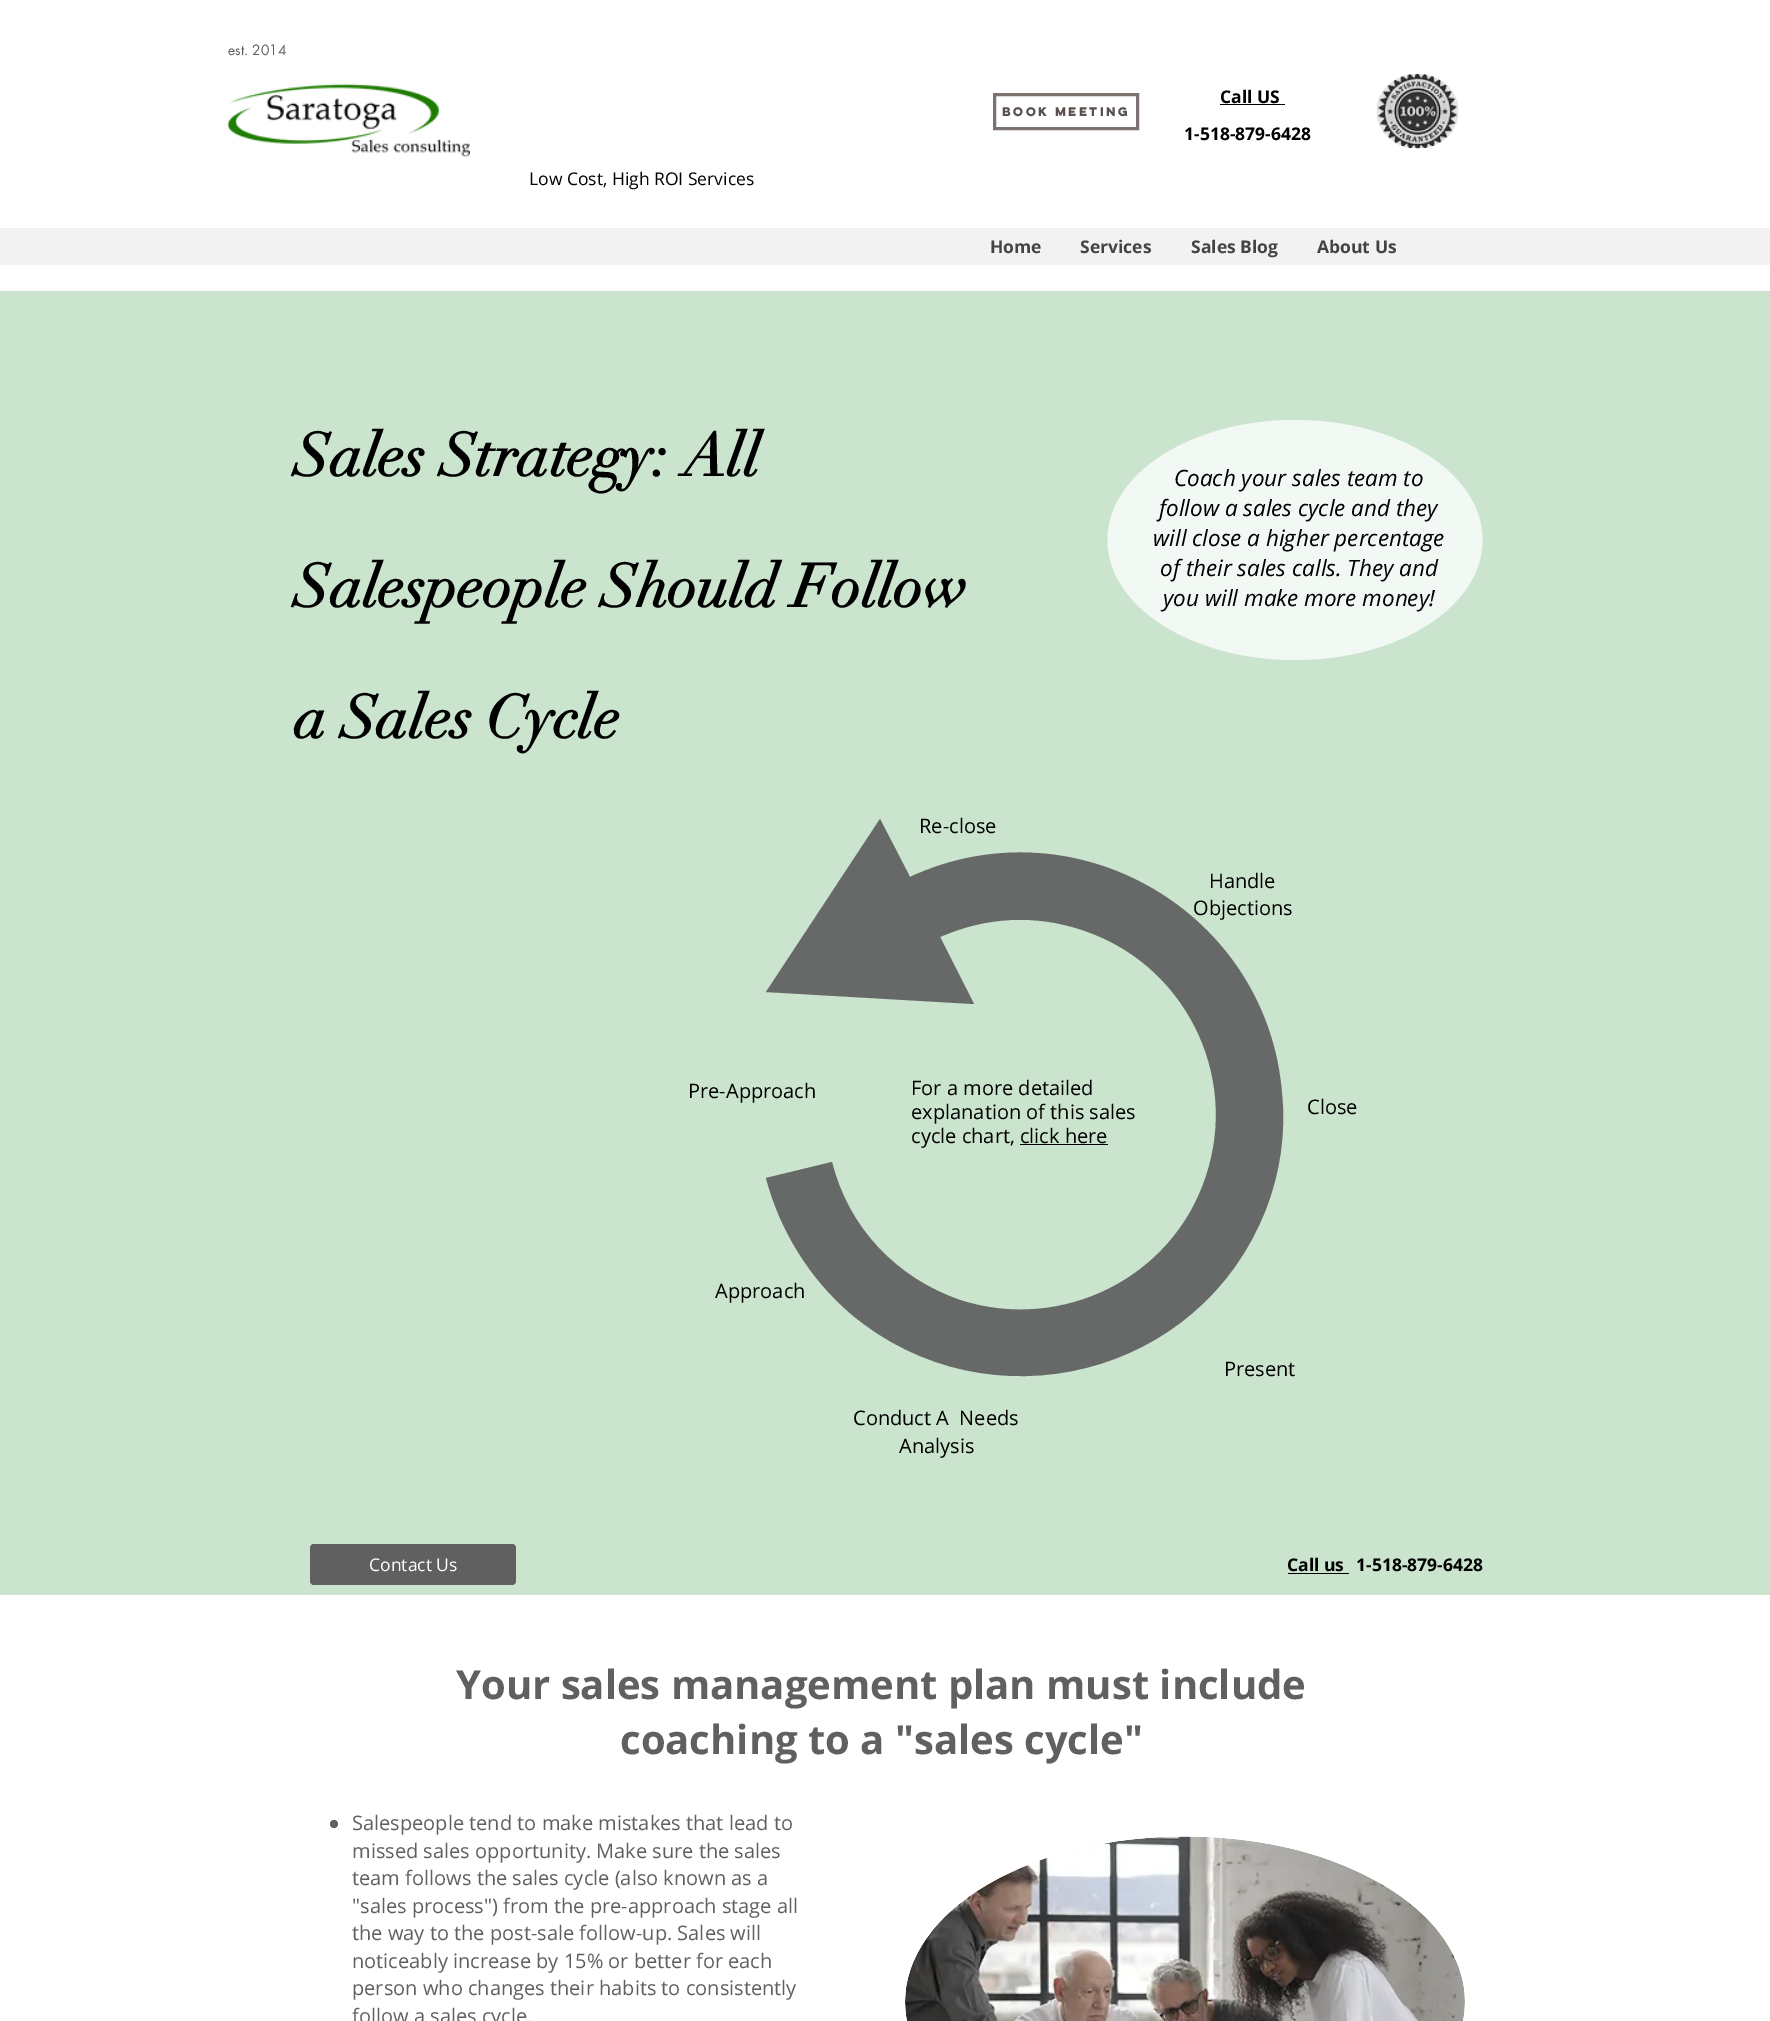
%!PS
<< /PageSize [1770 2021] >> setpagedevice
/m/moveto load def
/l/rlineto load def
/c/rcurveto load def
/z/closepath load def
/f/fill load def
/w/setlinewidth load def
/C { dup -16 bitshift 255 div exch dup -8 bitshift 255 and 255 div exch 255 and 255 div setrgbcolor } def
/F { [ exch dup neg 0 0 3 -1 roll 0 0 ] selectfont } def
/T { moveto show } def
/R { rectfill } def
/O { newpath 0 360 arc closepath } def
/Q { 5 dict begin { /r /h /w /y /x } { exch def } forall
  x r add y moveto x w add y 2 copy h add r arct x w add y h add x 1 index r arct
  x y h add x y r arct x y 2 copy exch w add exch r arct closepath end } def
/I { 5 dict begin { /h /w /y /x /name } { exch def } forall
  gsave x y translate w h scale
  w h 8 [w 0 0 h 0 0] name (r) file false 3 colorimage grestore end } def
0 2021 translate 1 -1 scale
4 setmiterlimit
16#FFFFFF C
0 0 1770 2021 R
/futura-Regular 13.75 F
16#606060 C
(est. 2014) 228 55 T
(1.rgb) 227 83 243 74 I
/OpenSans-Bold 17.5 F
16#000000 C
(Call US) 1220 103 T
1220 104 65 1 R
(2.rgb) 1376 74 83 75 I
16#7B736F C
3 w
994.5 94.5 143 34 rectstroke
/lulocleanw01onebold-Bold 11.25 F
16#59514D C
(Book Meeting) 1002 116 T
/OpenSans-Bold 17.5 F
16#000000 C
(1-518-879-6428) 1184 140 T
/OpenSans-Regular 17.5 F
(Low Cost, High ROI Services) 529 185 T
16#F2F2F2 C
0 228 1770 37 R
/OpenSans-Bold 17.5 F
16#444444 C
(Home) 990 253 T
(Services) 1080 253 T
(Sales Blog) 1191 253 T
(About Us) 1317 253 T
16#CBE4CE C
0 291 1770 1304 R
/didot-Bold 60 F
16#000000 C
(Sales Strategy: All) 294 476 T
(Salespeople Should Follow) 294 607 T
(a Sales Cycle) 294 738 T
16#F2F8F3 C
1295 420 m 103.5 0 187.5 53.5 187.5 120 c 0 66.5 -84 120 -187.5 120 c -103.5 0 -187.5 -53.5 -187.5 -120 c 0 -66.5 84 -120 187.5 -120 c z f
/OpenSans-Italic 22.5 F
16#000000 C
(Coach your sales team to) 1174 486 T
(follow a sales cycle and they) 1159 516 T
(will close a higher percentage) 1153 546 T
(of their sales calls. They and) 1160 576 T
(you will make more money!) 1163 606 T
16#676968 C
1282 1094 m -14 -181 -206 -294 -372 -217 c -30 -58 l -114 173 l 208 12 l -34 -67 l 45 -20 95 -23 142 -7 c 102 33 158 144 124 246 c -33 102 -144 157 -246 124 c -64 -22 -112 -73 -128 -138 c -66 16 l 14 53 44 101 85 136 c 138 116 350 63 415 -105 c 14 -36 20 -76 16 -115 c z f
/OpenSans-Regular 20 F
16#000000 C
(Re-close) 919 833 T
(Handle) 1209 888 T
(Objections) 1193 915 T
(Pre-Approach) 688 1098 T
(For a more detailed) 911 1095 T
(explanation of this sales) 911 1119 T
(cycle chart, click here) 911 1143 T
1020 1144 88 1 R
(Close) 1307 1114 T
(Approach) 715 1298 T
(Present) 1224 1376 T
(Conduct A  Needs) 853 1425 T
(Analysis) 899 1453 T
16#606060 C
310 1544 206 41 4 Q f
/OpenSans-Regular 17.5 F
16#FFFFFF C
(Contact Us) 369 1571 T
/OpenSans-Bold 17.5 F
16#000000 C
(Call us) 1287 1571 T
1288 1573 61 1 R
(1-518-879-6428) 1356 1571 T
/OpenSans-Bold 40 F
16#606060 C
(Your sales management plan must include) 456 1699 T
(coaching to a "sales cycle") 620 1754 T
334 1824 4 O f
/OpenSans-Regular 20 F
(Salespeople tend to make mistakes that lead to) 352 1830 T
(missed sales opportunity. Make sure the sales) 352 1858 T
(team follows the sales cycle \(also known as a) 352 1885 T
("sales process"\) from the pre-approach stage all) 352 1913 T
(the way to the post-sale follow-up. Sales will) 352 1940 T
(noticeably increase by 15% or better for each) 352 1968 T
(person who changes their habits to consistently) 352 1995 T
(follow a sales cycle.) 352 2023 T
(3.rgb) 905 1836 560 185 I
showpage
